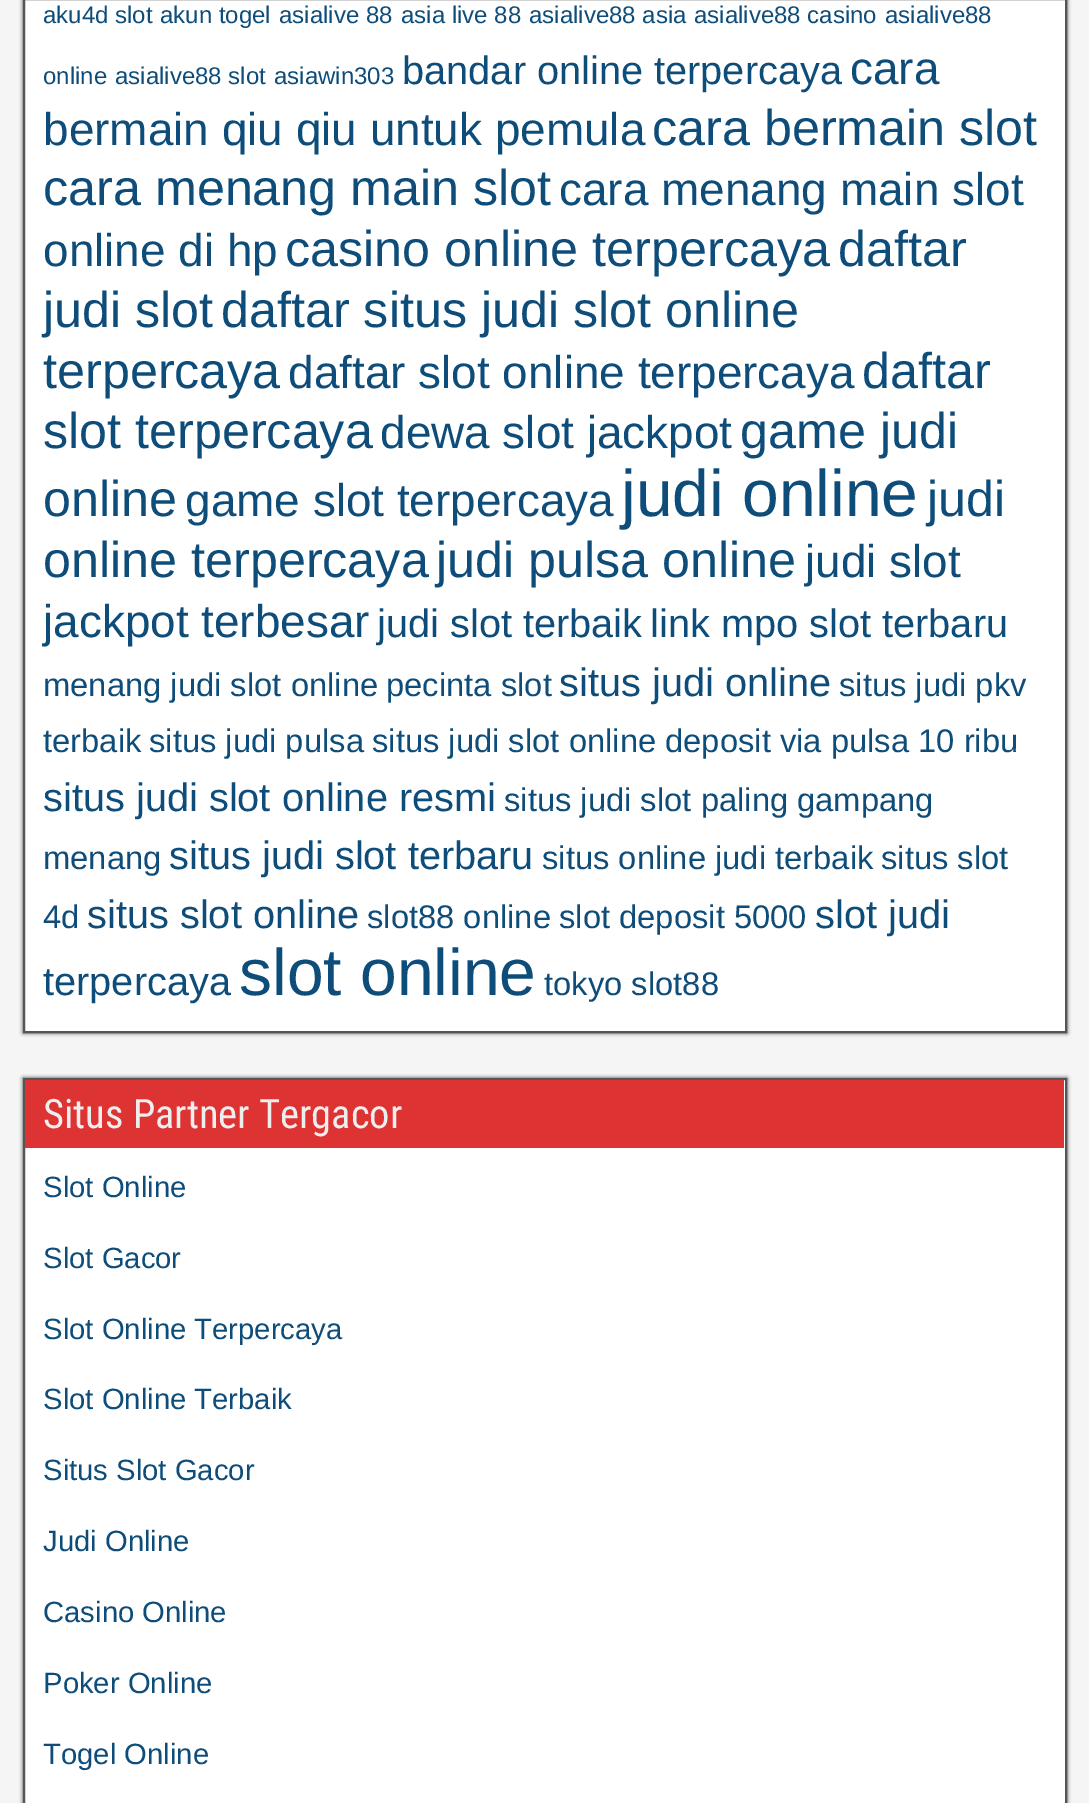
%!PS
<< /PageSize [1089 1803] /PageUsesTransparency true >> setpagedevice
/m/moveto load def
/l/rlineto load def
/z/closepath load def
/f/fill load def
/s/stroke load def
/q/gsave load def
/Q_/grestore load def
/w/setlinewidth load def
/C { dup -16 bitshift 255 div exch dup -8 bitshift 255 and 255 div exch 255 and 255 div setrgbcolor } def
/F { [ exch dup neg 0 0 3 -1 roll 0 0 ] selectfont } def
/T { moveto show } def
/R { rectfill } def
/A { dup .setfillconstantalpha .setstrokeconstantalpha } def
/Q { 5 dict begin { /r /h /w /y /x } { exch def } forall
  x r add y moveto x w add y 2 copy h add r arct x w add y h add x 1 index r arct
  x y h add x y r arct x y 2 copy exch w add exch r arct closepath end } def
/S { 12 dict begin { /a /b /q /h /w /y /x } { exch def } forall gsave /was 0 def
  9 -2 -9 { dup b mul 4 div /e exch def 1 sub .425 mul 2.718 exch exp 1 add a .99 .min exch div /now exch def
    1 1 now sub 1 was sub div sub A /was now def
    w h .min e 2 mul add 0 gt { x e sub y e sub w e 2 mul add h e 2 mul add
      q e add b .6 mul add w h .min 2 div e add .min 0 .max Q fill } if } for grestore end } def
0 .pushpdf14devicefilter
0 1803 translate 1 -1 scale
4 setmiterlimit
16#F5F5F5 C
0 0 1089 1803 R
16#333333 C
23 -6 1044 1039 0 2 1 S
16#FFFFFF C
24 -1 m 1042 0 l 0 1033 l -1042 0 l z q f Q_
16#555555 C
2 w
s
/LiberationSans-Regular 24 F
16#0E4D7A C
(aku4d slot) 43 23 T
(akun togel) 160 23 T
(asialive 88) 279 23 T
(asia live 88) 401 23 T
(asialive88 asia) 529 23 T
(asialive88 casino) 694 23 T
(asialive88) 885 23 T
(online) 43 84 T
(asialive88 slot) 115 84 T
(asiawin303) 274 84 T
/LiberationSans-Regular 39.75 F
(bandar online terpercaya) 402 84 T
/LiberationSans-Regular 45.9 F
(cara) 850 84 T
(bermain qiu qiu untuk pemula) 43 145 T
/LiberationSans-Regular 50.25 F
(cara bermain slot) 652 145 T
(cara menang main slot) 43 205 T
/LiberationSans-Regular 45.9 F
(cara menang main slot) 559 205 T
(online di hp) 43 266 T
/LiberationSans-Regular 50.25 F
(casino online terpercaya) 285 266 T
(daftar) 838 266 T
(judi slot) 43 327 T
(daftar situs judi slot online) 221 327 T
(terpercaya) 43 388 T
/LiberationSans-Regular 45.9 F
(daftar slot online terpercaya) 288 388 T
/LiberationSans-Regular 50.25 F
(daftar) 862 388 T
(slot terpercaya) 43 448 T
/LiberationSans-Regular 45.9 F
(dewa slot jackpot) 380 448 T
/LiberationSans-Regular 50.25 F
(game judi) 740 448 T
(online) 43 516 T
/LiberationSans-Regular 45.9 F
(game slot terpercaya) 185 516 T
/LiberationSans-Regular 66 F
(judi online) 621 516 T
/LiberationSans-Regular 50.25 F
(judi) 927 516 T
(online terpercaya) 43 577 T
(judi pulsa online) 436 577 T
/LiberationSans-Regular 45.9 F
(judi slot) 805 577 T
(jackpot terbesar) 43 637 T
/LiberationSans-Regular 39.75 F
(judi slot terbaik) 377 637 T
(link mpo slot terbaru) 650 637 T
/LiberationSans-Regular 32.75 F
(menang judi slot online) 43 696 T
(pecinta slot) 386 696 T
/LiberationSans-Regular 39.75 F
(situs judi online) 559 696 T
/LiberationSans-Regular 32.75 F
(situs judi pkv) 839 696 T
(terbaik) 43 752 T
(situs judi pulsa) 149 752 T
(situs judi slot online deposit via pulsa 10 ribu) 372 752 T
/LiberationSans-Regular 39.75 F
(situs judi slot online resmi) 43 811 T
/LiberationSans-Regular 32.75 F
(situs judi slot paling gampang) 504 811 T
(menang) 43 869 T
/LiberationSans-Regular 39.75 F
(situs judi slot terbaru) 169 869 T
/LiberationSans-Regular 32.75 F
(situs online judi terbaik) 542 869 T
(situs slot) 881 869 T
(4d) 43 928 T
/LiberationSans-Regular 39.75 F
(situs slot online) 87 928 T
/LiberationSans-Regular 32.75 F
(slot88 online) 367 928 T
(slot deposit 5000) 559 928 T
/LiberationSans-Regular 39.75 F
(slot judi) 815 928 T
(terpercaya) 43 995 T
/LiberationSans-Regular 66 F
(slot online) 239 995 T
/LiberationSans-Regular 32.75 F
(tokyo slot88) 544 995 T
16#333333 C
23 1078 1044 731 0 2 1 S
16#FFFFFF C
24 1079 m 1042 0 l 0 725 l -1042 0 l z q f Q_
16#555555 C
s
16#DD3333 C
25 1080 1039 68 R
/RobotoCondensed-Regular 40.5 F
16#EEEEEE C
(Situs Partner Tergacor) 43 1128 T
/LiberationSans-Regular 29.25 F
16#0E4D7A C
(Slot Online) 43 1197 T
(Slot Gacor) 43 1268 T
(Slot Online Terpercaya) 43 1339 T
(Slot Online Terbaik) 43 1409 T
(Situs Slot Gacor) 43 1480 T
(Judi Online) 43 1551 T
(Casino Online) 43 1622 T
(Poker Online) 43 1693 T
(Togel Online) 43 1764 T
.poppdf14devicefilter showpage
